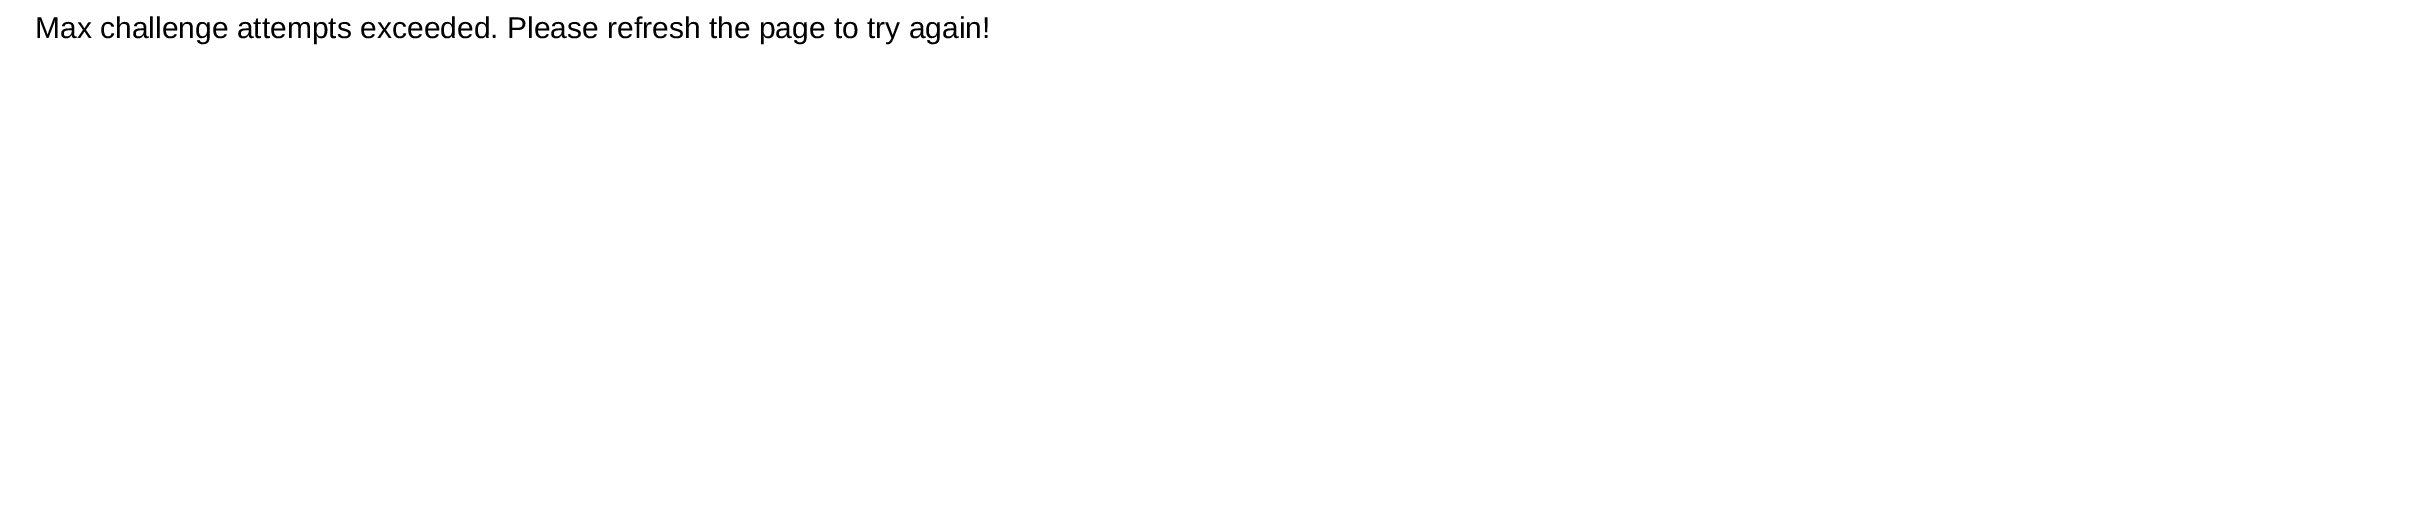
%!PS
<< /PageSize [2416 512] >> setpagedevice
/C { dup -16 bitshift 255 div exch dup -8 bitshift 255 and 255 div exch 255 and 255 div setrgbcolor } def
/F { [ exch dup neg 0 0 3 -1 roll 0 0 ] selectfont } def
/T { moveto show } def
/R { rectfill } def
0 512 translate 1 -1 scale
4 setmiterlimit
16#FFFFFF C
0 0 2416 512 R
/LiberationSans-Regular 30 F
16#000000 C
(Max challenge attempts exceeded. Please refresh the page to try again!) 35 38 T
showpage
